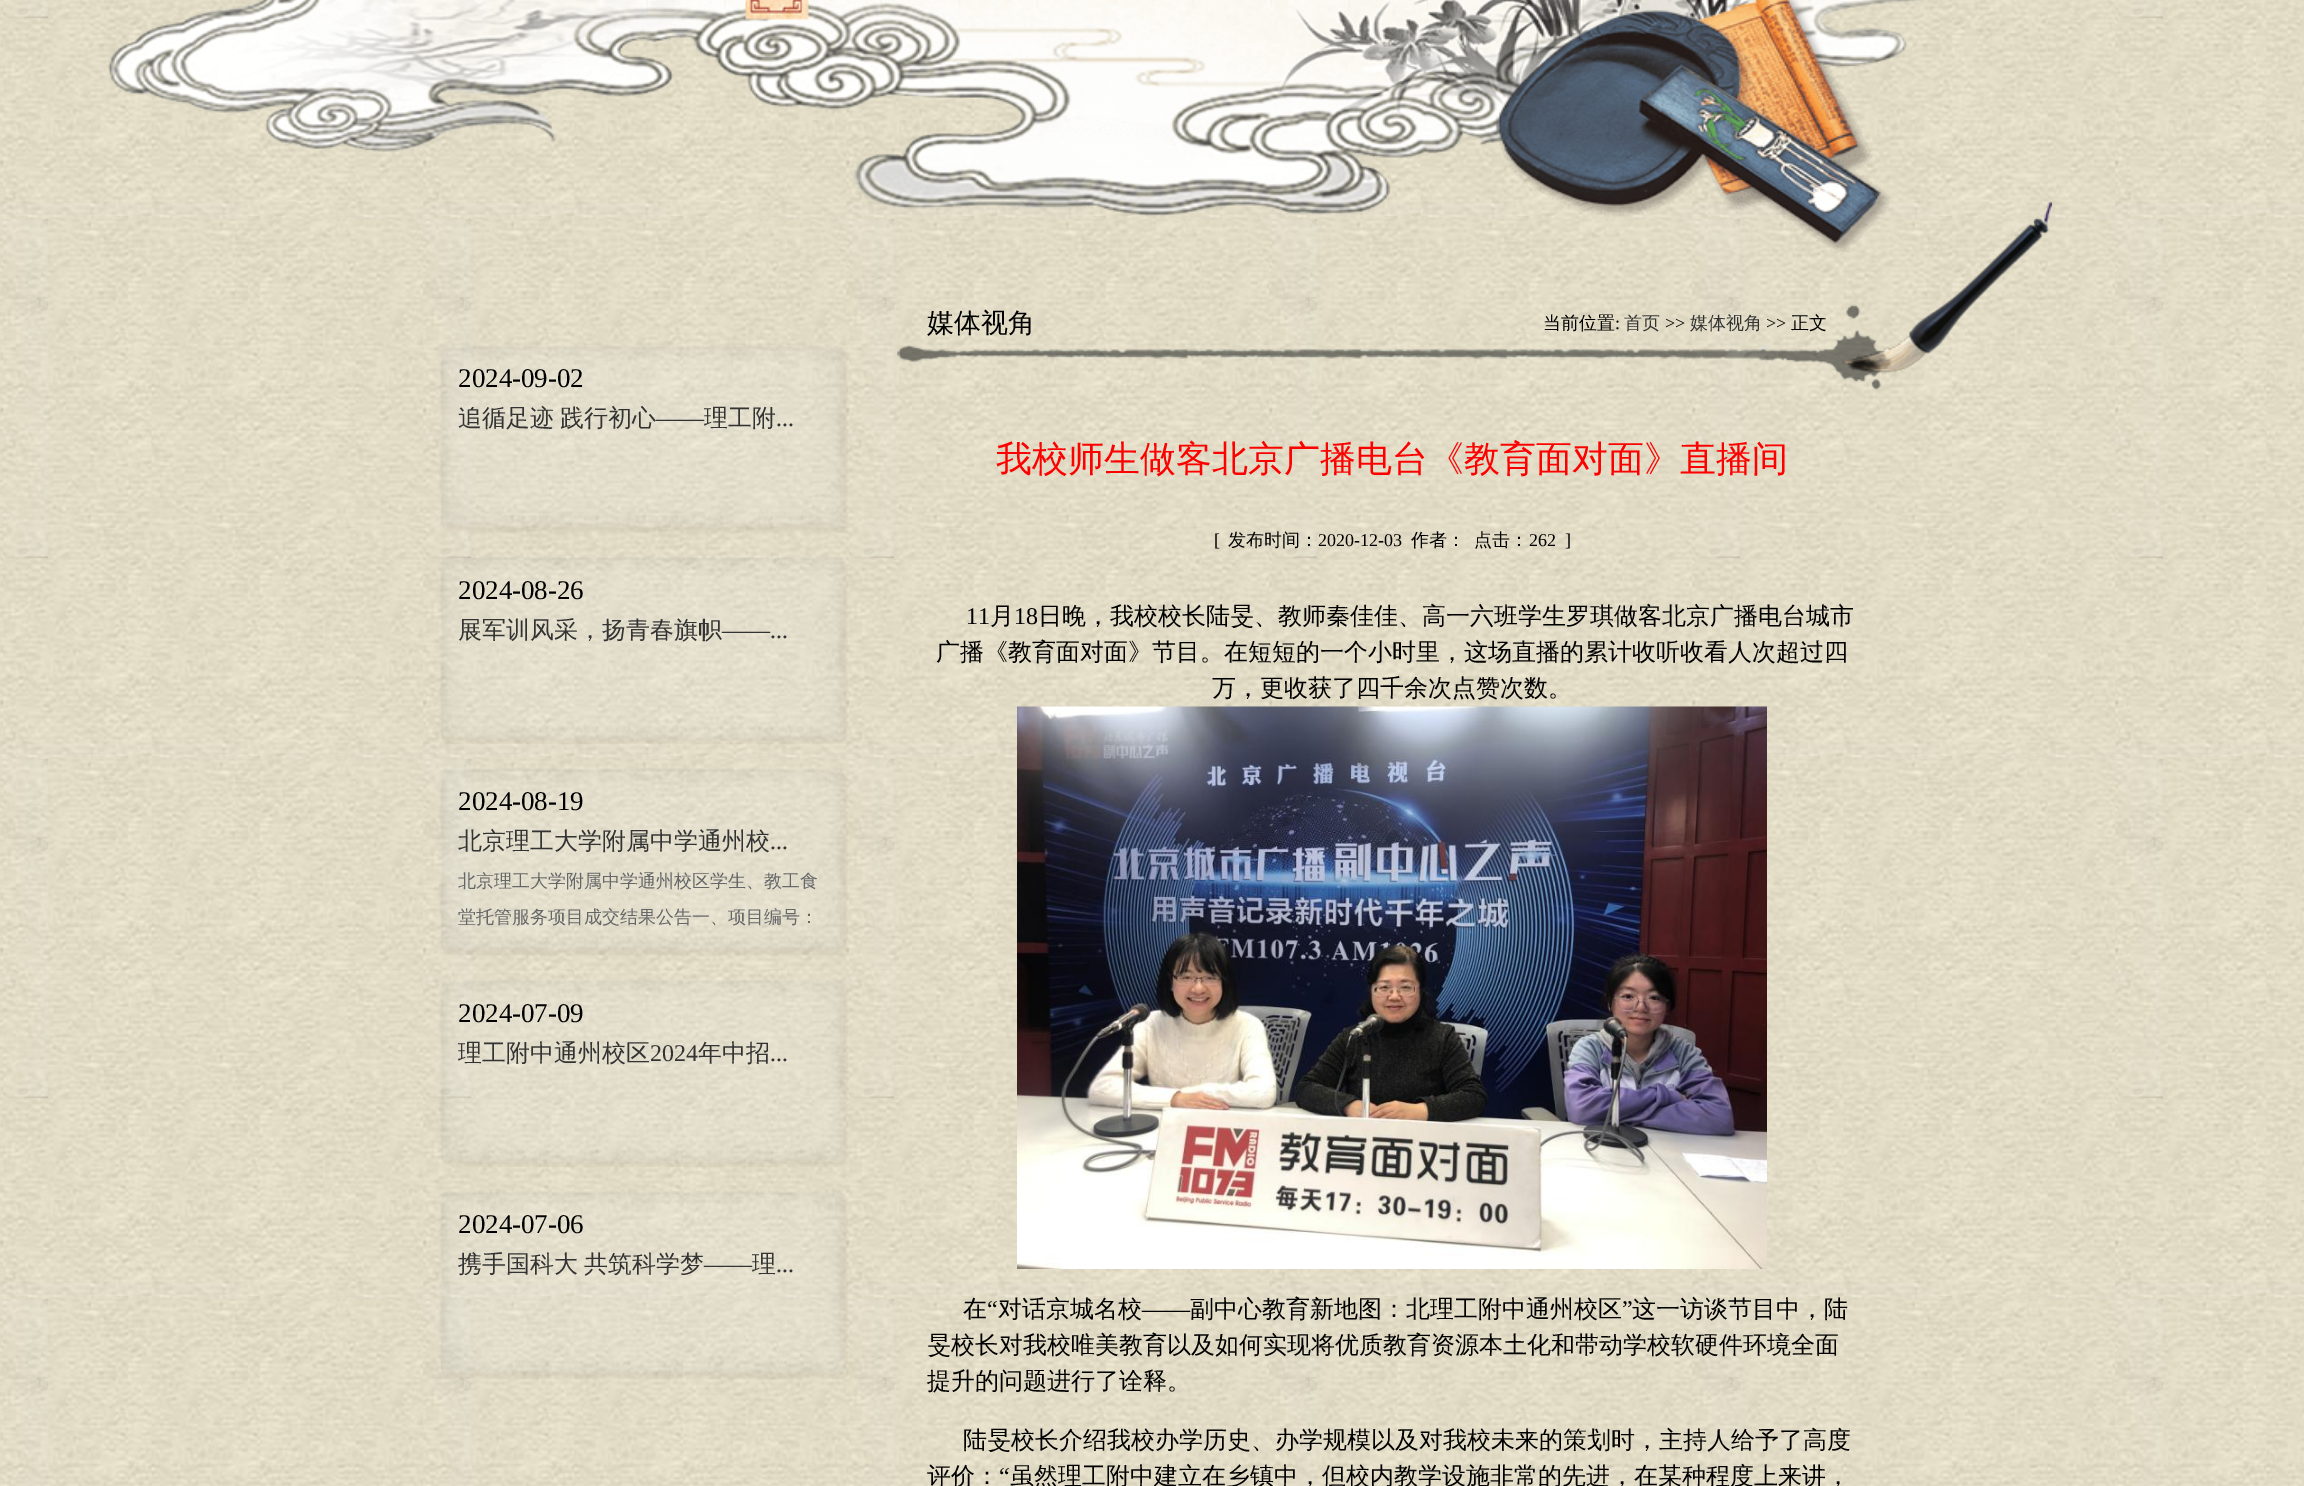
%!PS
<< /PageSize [2304 1486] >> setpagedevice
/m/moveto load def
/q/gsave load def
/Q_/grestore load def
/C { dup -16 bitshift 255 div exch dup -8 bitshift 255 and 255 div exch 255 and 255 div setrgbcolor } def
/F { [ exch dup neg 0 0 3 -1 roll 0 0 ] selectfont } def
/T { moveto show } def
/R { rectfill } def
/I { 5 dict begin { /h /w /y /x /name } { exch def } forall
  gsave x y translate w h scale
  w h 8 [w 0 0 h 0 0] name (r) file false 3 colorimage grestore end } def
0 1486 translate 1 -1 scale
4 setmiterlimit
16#FFFFFF C
0 0 2304 1486 R
(1.rgb) 0 0 2304 1486 I
(2.rgb) 107 0 1826 255 I
(3.rgb) 596 0 52 19 I
(4.rgb) 674 0 52 20 I
(5.rgb) 745 0 64 20 I
(6.rgb) 830 0 52 20 I
(7.rgb) 908 0 52 20 I
(8.rgb) 1009 0 29 8 I
(9.rgb) 1115 0 1 5 I
(10.rgb) 1193 0 1 5 I
(11.rgb) 1262 0 10 8 I
(12.rgb) 1299 0 51 20 I
(13.rgb) 1376 0 52 19 I
(14.rgb) 1453 0 53 20 I
(15.rgb) 1531 0 53 20 I
(16.rgb) 439 345 409 188 I
/LiberationSerif-Regular 27 F
16#000000 C
(2024-09-02) 458 387 T
/WenQuanYiZenHei-Medium 24 F
16#333333 C
458 426 m -1 0 32 (追循足迹 践行初心) widthshow
/LiberationSerif-Regular 24 F
(——) 656 426 T
/WenQuanYiZenHei-Medium 24 F
(理工附) 704 426 T
/LiberationSerif-Regular 24 F
(...) 776 426 T
(17.rgb) 439 557 409 187 I
/LiberationSerif-Regular 27 F
16#000000 C
(2024-08-26) 458 599 T
/WenQuanYiZenHei-Medium 24 F
16#333333 C
(展军训风采，扬青春旗帜) 458 638 T
/LiberationSerif-Regular 24 F
(——...) 722 638 T
(18.rgb) 439 768 409 188 I
/LiberationSerif-Regular 27 F
16#000000 C
(2024-08-19) 458 810 T
/WenQuanYiZenHei-Medium 24 F
16#333333 C
(北京理工大学附属中学通州校) 458 849 T
/LiberationSerif-Regular 24 F
(...) 770 849 T
/WenQuanYiZenHei-Medium 18 F
16#656668 C
(北京理工大学附属中学通州校区学生、教工食) 458 887 T
(堂托管服务项目成交结果公告一、项目编号：) 458 923 T
(19.rgb) 439 980 409 187 I
/LiberationSerif-Regular 27 F
16#000000 C
(2024-07-09) 458 1022 T
q
458 1031 375 43 rectclip
/WenQuanYiZenHei-Medium 24 F
16#333333 C
(理工附中通州校区) 458 1061 T
Q_
/LiberationSerif-Regular 24 F
16#333333 C
(2024) 650 1061 T
/WenQuanYiZenHei-Medium 24 F
(年中招) 698 1061 T
/LiberationSerif-Regular 24 F
(...) 770 1061 T
(20.rgb) 439 1191 409 188 I
/LiberationSerif-Regular 27 F
16#000000 C
(2024-07-06) 458 1233 T
/WenQuanYiZenHei-Medium 24 F
16#333333 C
458 1272 m -1 0 32 (携手国科大 共筑科学梦) widthshow
/LiberationSerif-Regular 24 F
(——) 704 1272 T
/WenQuanYiZenHei-Medium 24 F
(理) 752 1272 T
/LiberationSerif-Regular 24 F
(...) 776 1272 T
(21.rgb) 897 304 989 86 I
/WenQuanYiZenHei-Medium 27 F
16#000000 C
(媒体视角) 927 332 T
/WenQuanYiZenHei-Medium 18 F
(当前位置) 1543 329 T
/LiberationSerif-Regular 18 F
(:) 1615 329 T
/WenQuanYiZenHei-Medium 18 F
16#333333 C
(首页) 1624 329 T
/LiberationSerif-Regular 18 F
16#000000 C
(>>) 1665 329 T
/WenQuanYiZenHei-Medium 18 F
16#333333 C
(媒体视角) 1690 329 T
/LiberationSerif-Regular 18 F
16#000000 C
(>>) 1766 329 T
/WenQuanYiZenHei-Medium 18 F
(正文) 1791 329 T
(22.rgb) 1842 202 210 173 I
/WenQuanYiZenHei-Medium 36 F
16#FD0100 C
(我校师生做客北京广播电台《教育面对面》直播间) 996 471 T
/LiberationSerif-Regular 18 F
16#000000 C
([) 1214 546 T
/WenQuanYiZenHei-Medium 18 F
(发布时间：) 1228 546 T
/LiberationSerif-Regular 18 F
(2020-12-03) 1318 546 T
/WenQuanYiZenHei-Medium 18 F
(作者：) 1411 546 T
(点击：) 1474 546 T
/LiberationSerif-Regular 18 F
(262) 1529 546 T
(]) 1565 546 T
/LiberationSerif-Regular 24 F
(11) 966 624 T
/WenQuanYiZenHei-Medium 24 F
(月) 990 624 T
/LiberationSerif-Regular 24 F
(18) 1014 624 T
/WenQuanYiZenHei-Medium 24 F
(日晚，我校校长陆旻、教师秦佳佳、高一六班学生罗琪做客北京广播电台城市) 1038 624 T
(广播《教育面对面》节目。在短短的一个小时里，这场直播的累计收听收看人次超过四) 936 660 T
(万，更收获了四千余次点赞次数。) 1212 696 T
(23.rgb) 1017 706 750 563 I
(在) 963 1317 T
/LiberationSerif-Regular 24 F
(“) 987 1317 T
/WenQuanYiZenHei-Medium 24 F
(对话京城名校) 998 1317 T
(副中心教育新地图：北理工附中通州校区) 1190 1317 T
/LiberationSerif-Regular 24 F
(”) 1622 1317 T
/WenQuanYiZenHei-Medium 24 F
(这一访谈节目中，陆) 1632 1317 T
/LiberationSerif-Regular 24 F
(——) 1142 1317 T
/WenQuanYiZenHei-Medium 24 F
(旻校长对我校唯美教育以及如何实现将优质教育资源本土化和带动学校软硬件环境全面) 927 1353 T
(提升的问题进行了诠释。) 927 1389 T
(陆旻校长介绍我校办学历史、办学规模以及对我校未来的策划时，主持人给予了高度) 963 1448 T
(评价：) 927 1484 T
/LiberationSerif-Regular 24 F
(“) 999 1484 T
/WenQuanYiZenHei-Medium 24 F
(虽然理工附中建立在乡镇中，但校内教学设施非常的先进，在某种程度上来讲，) 1010 1484 T
showpage
